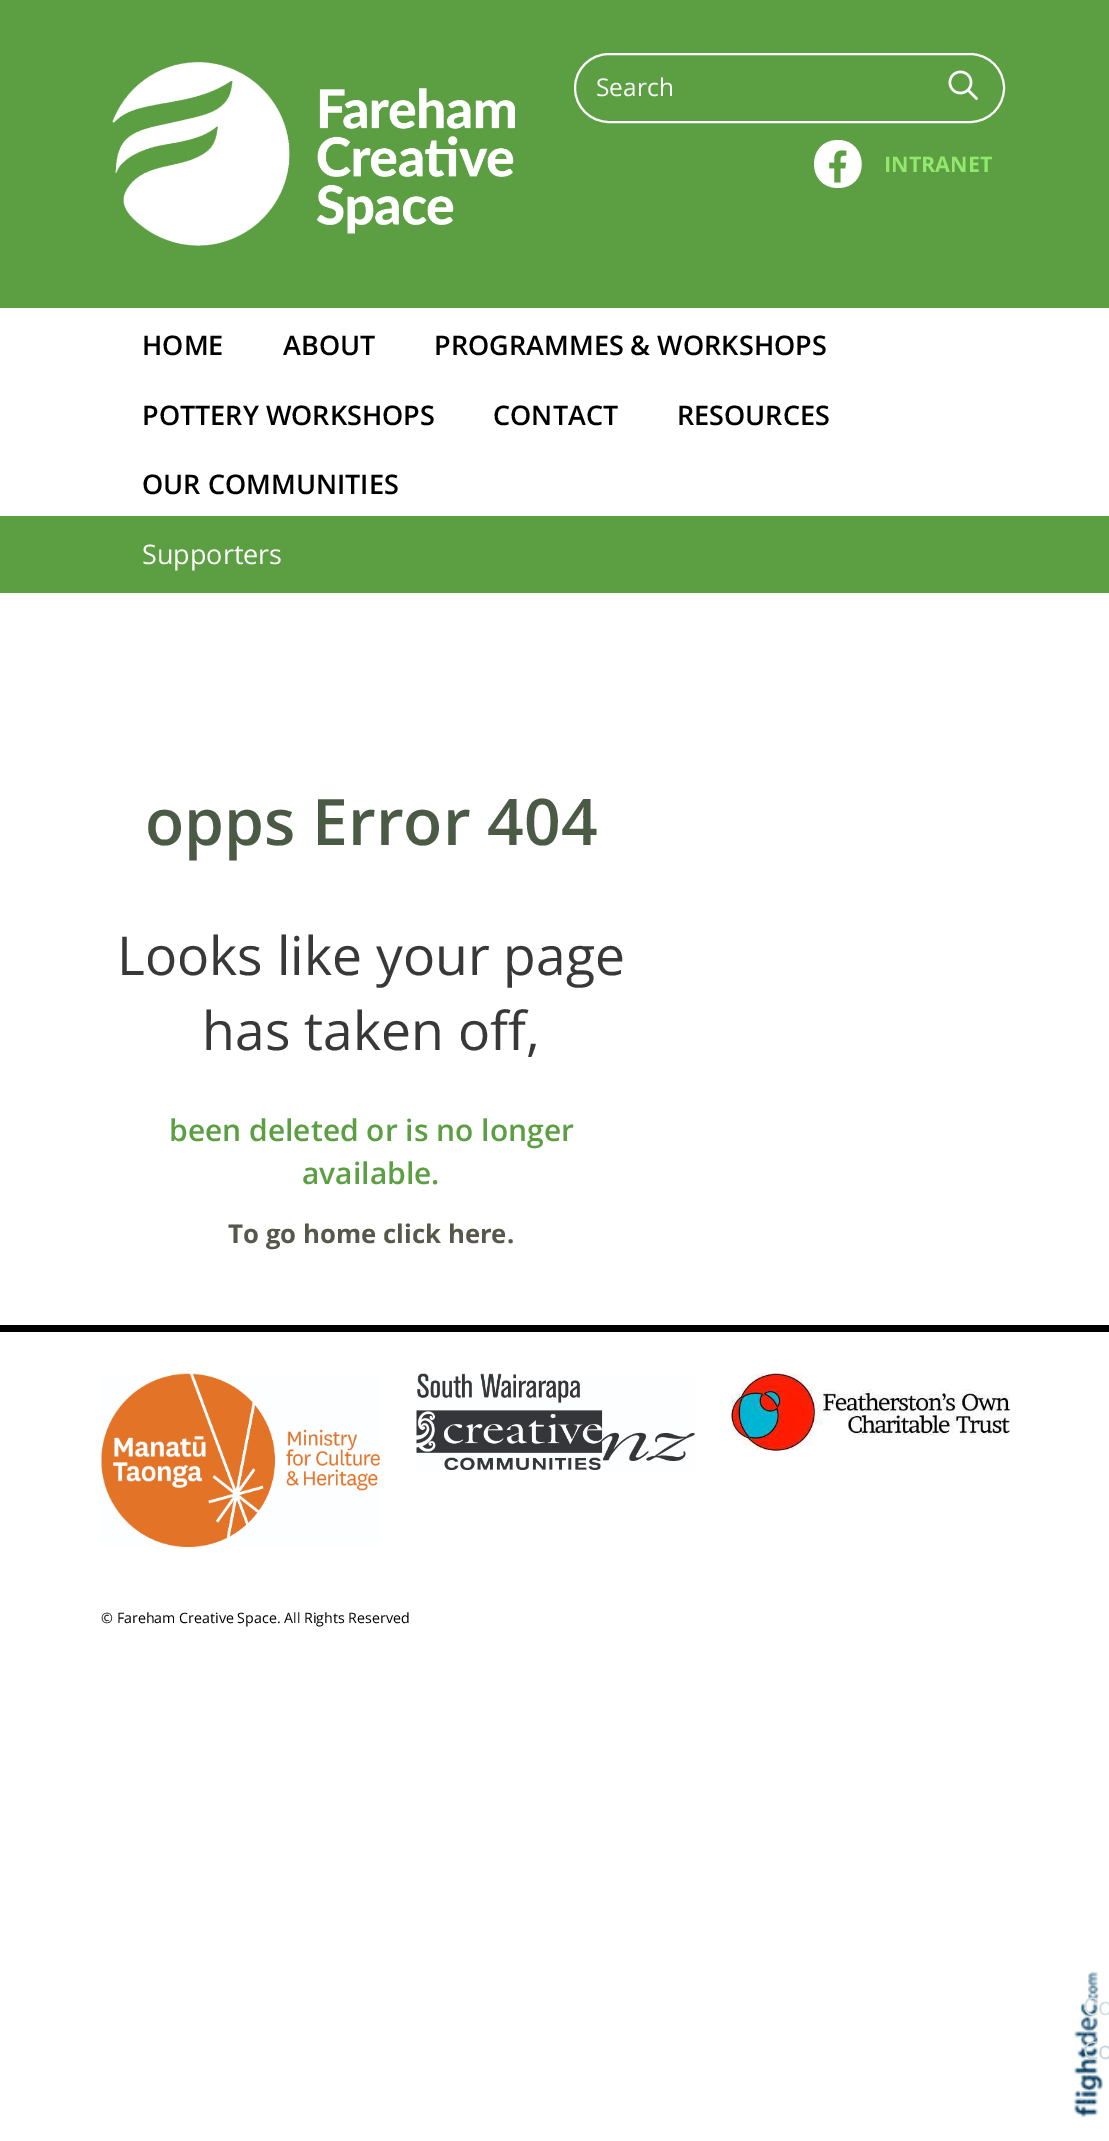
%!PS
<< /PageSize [1109 2141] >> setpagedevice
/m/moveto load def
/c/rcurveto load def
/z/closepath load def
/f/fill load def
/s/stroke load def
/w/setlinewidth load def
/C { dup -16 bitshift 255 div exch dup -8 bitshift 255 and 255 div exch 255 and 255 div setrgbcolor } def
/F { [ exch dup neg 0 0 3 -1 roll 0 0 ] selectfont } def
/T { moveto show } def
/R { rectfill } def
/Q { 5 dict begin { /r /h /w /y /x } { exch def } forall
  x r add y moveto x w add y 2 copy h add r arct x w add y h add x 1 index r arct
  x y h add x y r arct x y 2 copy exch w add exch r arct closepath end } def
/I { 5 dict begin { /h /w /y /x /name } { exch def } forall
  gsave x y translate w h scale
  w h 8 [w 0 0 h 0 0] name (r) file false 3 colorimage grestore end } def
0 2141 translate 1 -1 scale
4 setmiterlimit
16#FFFFFF C
0 0 1109 2141 R
16#5C9F43 C
0 0 1109 308 R
(1.rgb) 112 62 403 184 I
16#FFFFFF C
2 w
575 54 429 68 34 Q s
/OpenSans-Regular 24.5 F
(Search) 596 96 T
(2.rgb) 948 70 30 30 I
838 188 m 32 0 31 -48 0 -48 c -32 0 -32 48 0 48 c z f
(3.rgb) 829 150 18 33 I
/OpenSans-Bold 21.5 F
16#93E76D C
(INTRANET) 884 172 T
/OpenSans-SemiBold 27 F
16#000000 C
(HOME) 142 355 T
(ABOUT) 283 355 T
(PROGRAMMES & WORKSHOPS) 434 355 T
(POTTERY WORKSHOPS) 142 425 T
(CONTACT) 493 425 T
(RESOURCES) 677 425 T
(OUR COMMUNITIES) 142 494 T
16#5C9F43 C
0 516 1109 77 R
/OpenSans-Regular 27 F
16#FFFFFF C
(Supporters) 142 564 T
/OpenSans-SemiBold 64.25 F
16#4B5A45 C
(opps Error 404) 145 845 T
/OpenSans-Regular 53.5 F
16#383838 C
(Looks like your page) 117 975 T
(has taken off,) 202 1050 T
/OpenSans-SemiBold 30 F
16#5C9F43 C
(been deleted or is no longer) 169 1141 T
(available.) 302 1184 T
/OpenSans-Bold 25.75 F
16#57574B C
(To go home click here.) 228 1243 T
16#000000 C
0 1325 1109 7 R
(4.rgb) 101 1373 279 174 I
(5.rgb) 416 1373 279 97 I
(6.rgb) 731 1373 279 78 I
/OpenSans-Regular 14.25 F
(© Fareham Creative Space. All Rights Reserved) 101 1623 T
(7.rgb) 1074 1971 29 147 I
/OpenSans-Regular 24.5 F
16#D3DEE3 C
(Co) 1083 2015 T
16#C7D4DB C
(Co) 1083 2059 T
showpage
